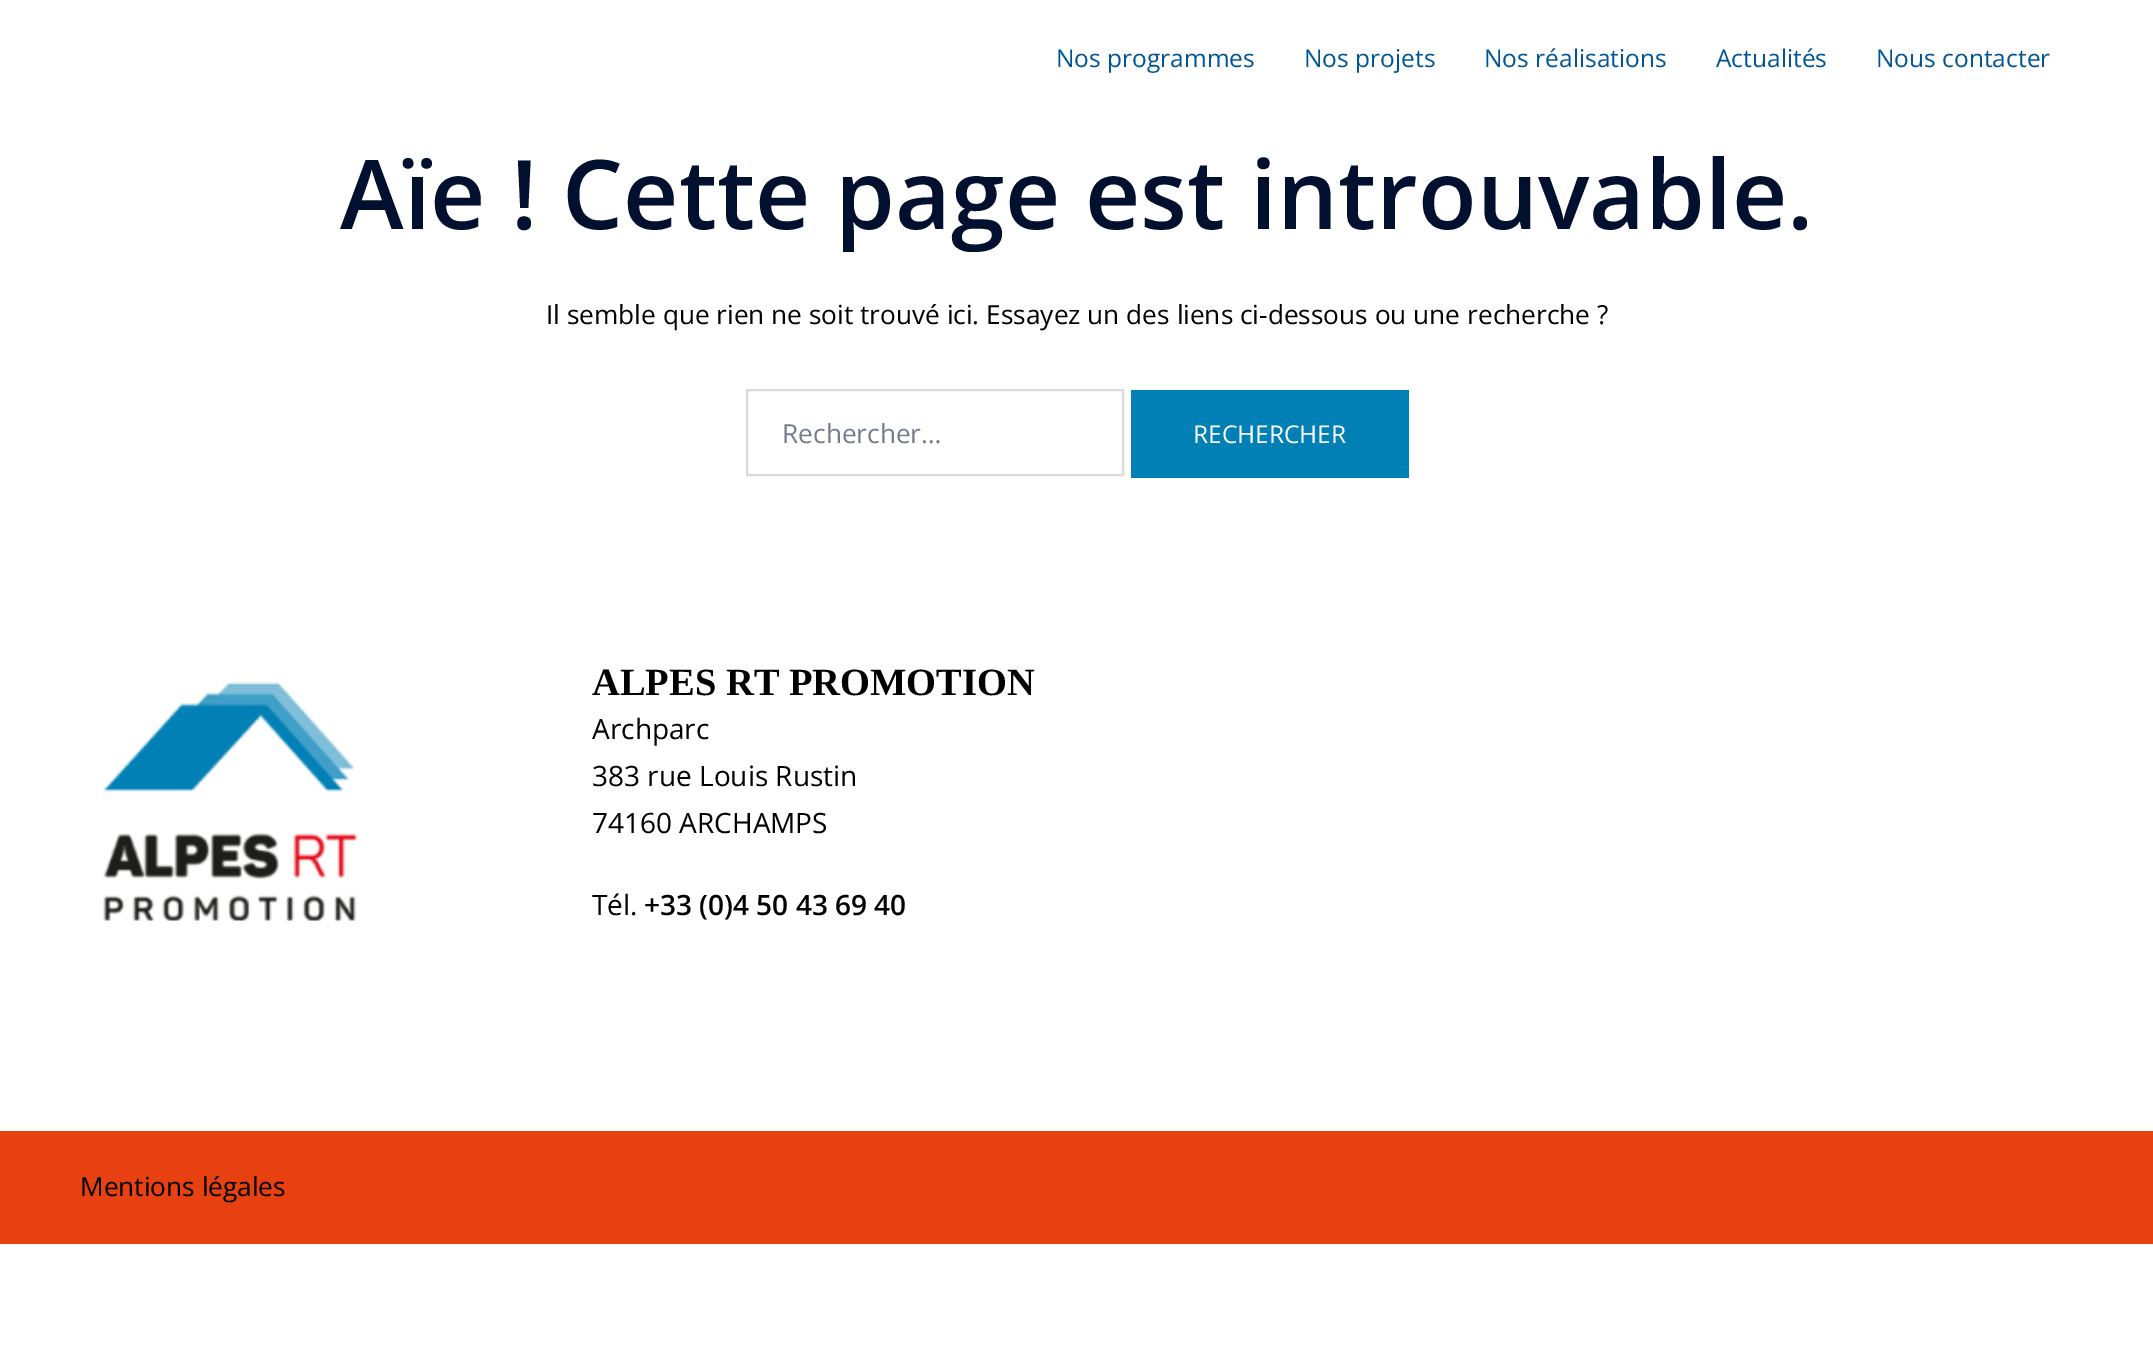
%!PS
<< /PageSize [2153 1362] >> setpagedevice
/w/setlinewidth load def
/C { dup -16 bitshift 255 div exch dup -8 bitshift 255 and 255 div exch 255 and 255 div setrgbcolor } def
/F { [ exch dup neg 0 0 3 -1 roll 0 0 ] selectfont } def
/T { moveto show } def
/R { rectfill } def
/I { 5 dict begin { /h /w /y /x /name } { exch def } forall
  gsave x y translate w h scale
  w h 8 [w 0 0 h 0 0] name (r) file false 3 colorimage grestore end } def
0 1362 translate 1 -1 scale
4 setmiterlimit
16#FFFFFF C
0 0 2153 1362 R
/OpenSans-Regular 24.5 F
16#005695 C
(Nos programmes) 1056 67 T
(Nos projets) 1304 67 T
(Nos réalisations) 1484 67 T
(Actualités) 1716 67 T
(Nous contacter) 1876 67 T
/OpenSans-SemiBold 96.25 F
16#00102E C
(Aïe ! Cette page est introuvable.) 340 229 T
/OpenSans-Regular 26.25 F
16#000000 C
(Il semble que rien ne soit trouvé ici. Essayez un des liens ci-dessous ou une recherche ?) 546 324 T
16#DBDBDB C
2 w
747 390 376 85 rectstroke
16#737C8C C
(Rechercher…) 782 443 T
16#0080B5 C
1131 390 278 88 R
/OpenSans-Regular 24.5 F
16#FFFFFF C
(RECHERCHER) 1193 443 T
(1.rgb) 103 682 255 239 I
/LiberationSerif-Bold 38.5 F
16#000000 C
(ALPES RT PROMOTION) 592 695 T
/OpenSans-Regular 28 F
(Archparc) 592 739 T
(383 rue Louis Rustin) 592 786 T
(74160 ARCHAMPS) 592 833 T
(Tél.) 592 915 T
/OpenSans-SemiBold 28 F
(+33 \(0\)4 50 43 69 40) 644 915 T
16#E74011 C
0 1131 2153 113 R
/OpenSans-Regular 26.25 F
16#000000 C
(Mentions légales) 80 1196 T
showpage
